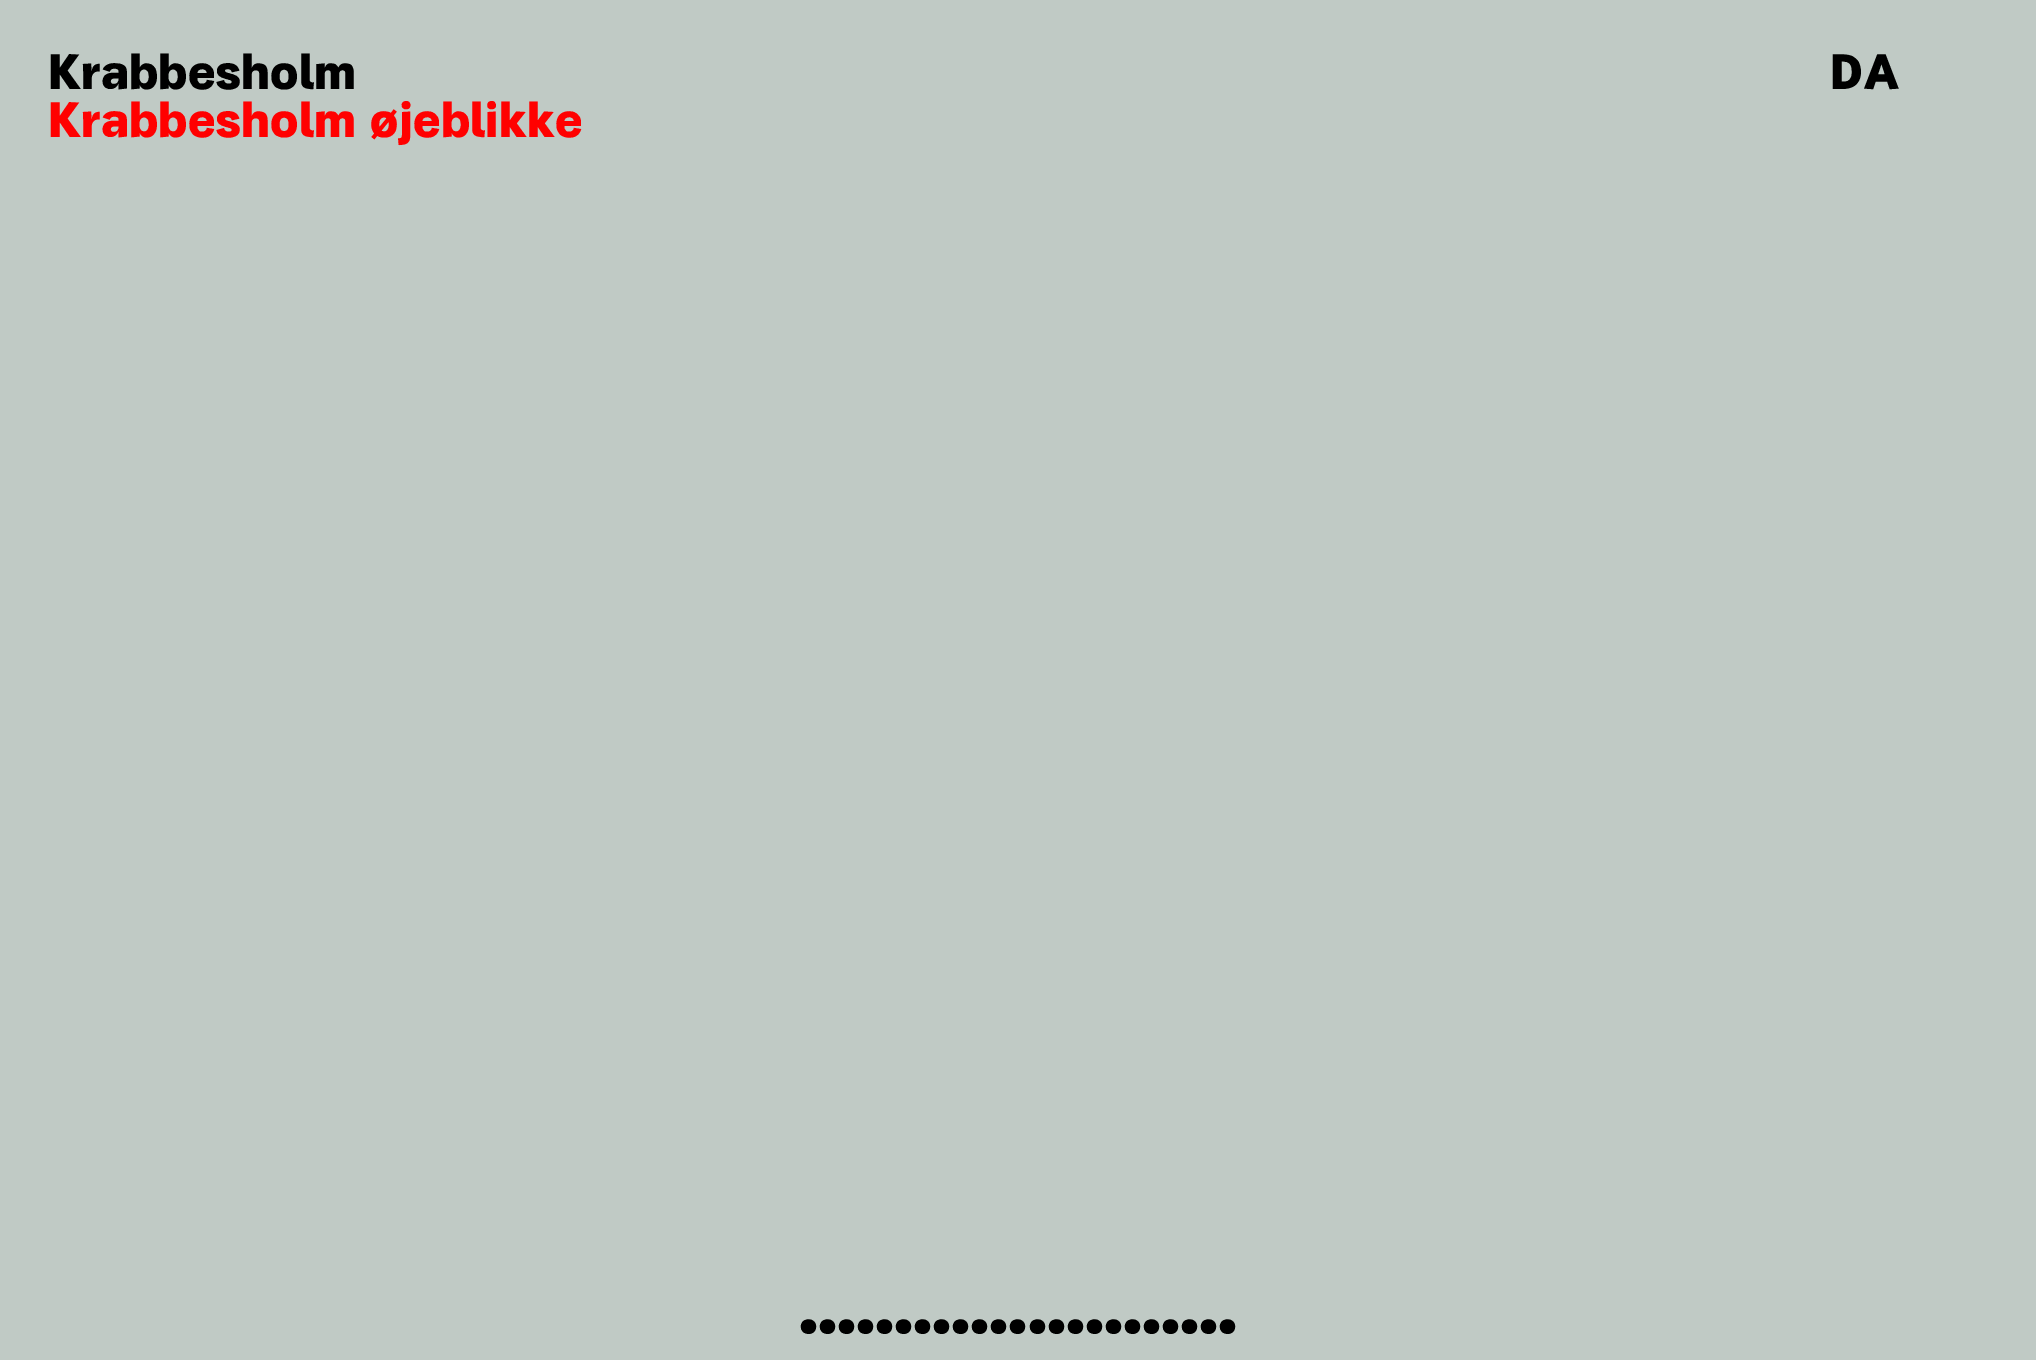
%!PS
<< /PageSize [2036 1360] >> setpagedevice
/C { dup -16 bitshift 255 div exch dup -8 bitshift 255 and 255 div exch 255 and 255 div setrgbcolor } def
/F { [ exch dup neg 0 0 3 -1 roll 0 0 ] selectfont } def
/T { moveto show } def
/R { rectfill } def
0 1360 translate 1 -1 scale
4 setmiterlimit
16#C0CAC5 C
0 0 2036 1360 R
/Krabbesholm-Bold 46 F
16#000000 C
(Krabbesholm) 48 89 T
(DA) 1830 89 T
16#FF0000 C
(Krabbesholm øjeblikke) 48 137 T
16#000000 C
(•••••••••••••••••••••••) 799 1343 T
showpage
